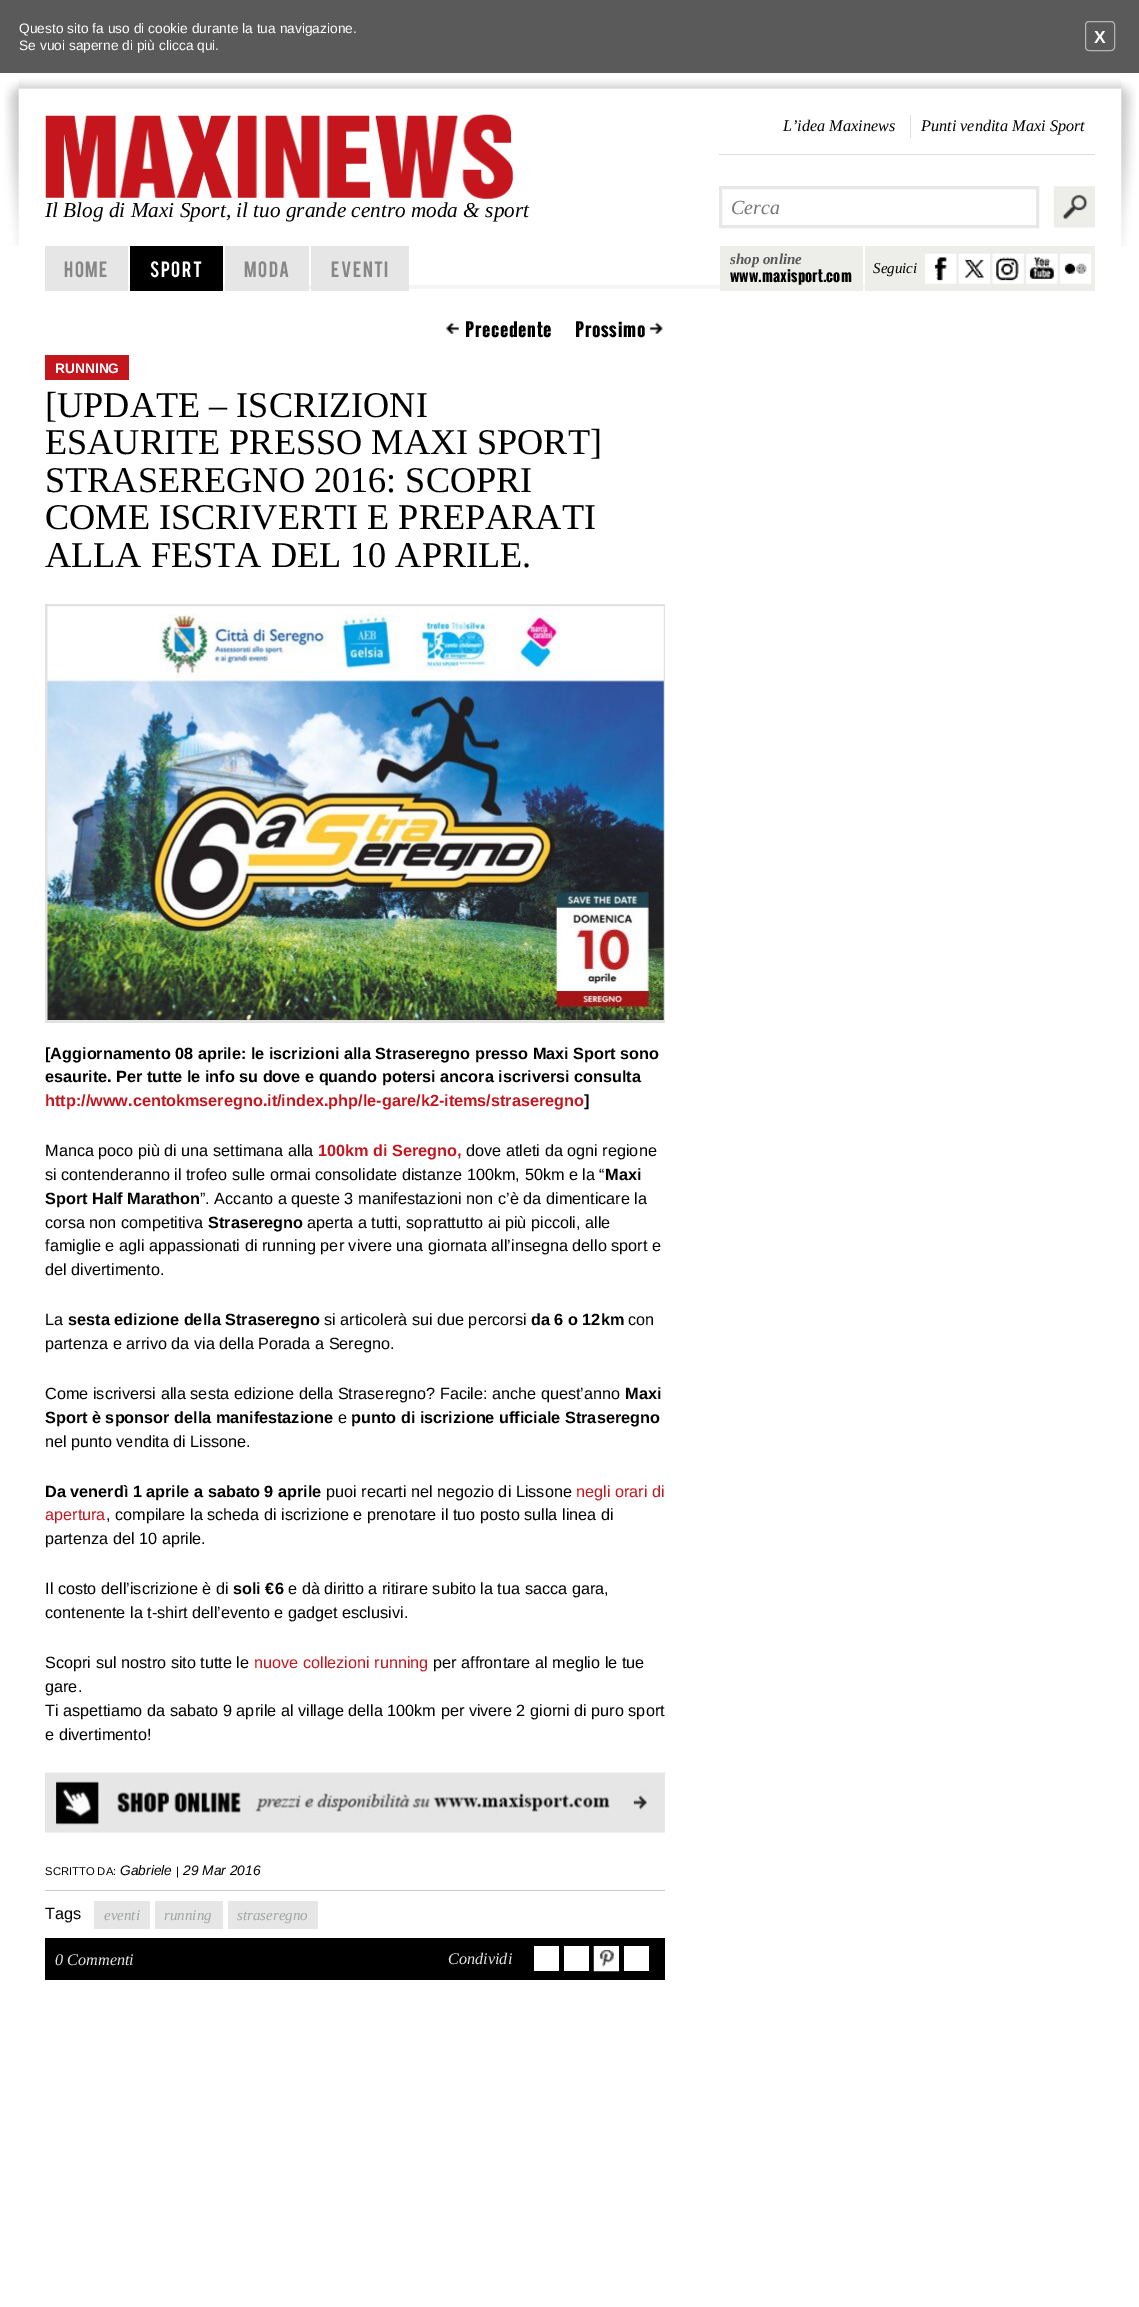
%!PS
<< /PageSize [1139 2307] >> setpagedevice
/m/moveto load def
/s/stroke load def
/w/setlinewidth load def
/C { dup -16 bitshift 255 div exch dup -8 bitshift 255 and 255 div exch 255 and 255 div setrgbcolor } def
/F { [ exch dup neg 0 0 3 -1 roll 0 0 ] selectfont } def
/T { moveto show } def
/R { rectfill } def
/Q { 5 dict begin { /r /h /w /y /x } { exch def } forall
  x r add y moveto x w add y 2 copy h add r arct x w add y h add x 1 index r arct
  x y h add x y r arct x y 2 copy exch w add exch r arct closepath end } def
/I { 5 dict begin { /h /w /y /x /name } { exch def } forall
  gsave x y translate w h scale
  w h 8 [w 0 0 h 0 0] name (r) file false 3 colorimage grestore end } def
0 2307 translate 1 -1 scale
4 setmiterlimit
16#FFFFFF C
0 0 1139 2307 R
16#5A5A5A C
0 0 1139 73 R
/LiberationSans-Regular 13.75 F
16#FFFFFF C
(Questo sito fa uso di cookie durante la tua navigazione.) 19 33 T
(Se vuoi saperne di più clicca qui.) 19 50 T
16#B4B4B4 C
1085.5 21.5 29 29 3.5 Q s
/LiberationSans-Bold 17.5 F
16#FFFFFF C
(X) 1094 43 T
(2.rgb) 18 79 1104 10 I
(1.rgb) 4 81 15 165 I
16#DEDEDE C
719 154 376 1 R
/LiberationSerif-Italic 16.25 F
16#000000 C
(L’idea Maxinews) 783 131 T
16#DEDEDE C
910 115 1 23 R
16#000000 C
(Punti vendita Maxi Sport) 921 131 T
(3.rgb) 45 114 469 85 I
/LiberationSerif-Italic 21.25 F
(Il Blog di Maxi Sport, il tuo grande centro moda & sport) 45 217 T
16#E8E8E8 C
3 w
720.5 187.5 317 39 rectstroke
/LiberationSerif-Italic 20 F
16#757575 C
(Cerca) 731 214 T
(4.rgb) 1053 186 42 42 I
16#F5F5F5 C
128 285 737 4 R
16#E6E6E6 C
45 246 83 45 R
/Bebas-Regular 17.5 F
16#878787 C
64 277 m 1.5 0 (HOME) ashow
16#000000 C
130 246 93 45 R
16#FFFFFF C
150 277 m 1.5 0 (SPORT) ashow
16#E6E6E6 C
225 246 84 45 R
16#878787 C
244 277 m 1.5 0 (MODA) ashow
16#E6E6E6 C
311 246 98 45 R
16#878787 C
331 277 m 1.5 0 (EVENTI) ashow
16#EDEDEA C
720 246 143 45 R
/LiberationSerif-BoldItalic 15 F
16#575757 C
(shop online) 730 264 T
/Oswald-Bold 15 F
16#000000 C
730 282 m .1 0 (www.maxisport.com) ashow
16#EDEDEA C
865 246 230 45 R
/LiberationSerif-Italic 15 F
16#000000 C
(Seguici) 873 273 T
(5.rgb) 925 253 32 31 I
(6.rgb) 958 253 32 31 I
(7.rgb) 992 253 32 31 I
(8.rgb) 1026 253 32 31 I
(9.rgb) 1060 253 32 31 I
(10.rgb) 446 322 13 12 I
/Oswald-Bold 18 F
465 337 m .75 0 (Precedente) ashow
(11.rgb) 649 322 14 12 I
575 337 m .75 0 (Prossimo) ashow
16#C4161C C
45 355 84 25 R
/LiberationSans-Bold 13.75 F
16#FFFFFF C
(RUNNING) 55 373 T
/LiberationSerif-Regular 36.25 F
16#000000 C
([UPDATE – ISCRIZIONI) 45 417 T
(ESAURITE PRESSO MAXI SPORT]) 45 454 T
(STRASEREGNO 2016: SCOPRI) 45 492 T
(COME ISCRIVERTI E PREPARATI) 45 529 T
(ALLA FESTA DEL 10 APRILE.) 45 567 T
16#E2E2E2 C
45 604 620 419 R
(12.rgb) 47 606 617 414 I
/LiberationSans-Bold 16.25 F
16#000000 C
([Aggiornamento 08 aprile: le iscrizioni alla Straseregno presso Maxi Sport sono) 45 1059 T
(esaurite. Per tutte le info su dove e quando potersi ancora iscriversi consulta) 45 1082 T
16#C4161C C
(http://www.centokmseregno.it/index.php/le-gare/k2-items/straseregno) 45 1106 T
16#000000 C
(]) 584 1106 T
/LiberationSans-Regular 16.25 F
(Manca poco più di una settimana alla) 45 1156 T
/LiberationSans-Bold 16.25 F
16#C4161C C
(100km di Seregno,) 318 1156 T
/LiberationSans-Regular 16.25 F
16#000000 C
(dove atleti da ogni regione) 466 1156 T
(si contenderanno il trofeo sulle ormai consolidate distanze 100km, 50km e la “) 45 1180 T
/LiberationSans-Bold 16.25 F
(Maxi) 605 1180 T
(Sport Half Marathon) 45 1204 T
/LiberationSans-Regular 16.25 F
(”. Accanto a queste 3 manifestazioni non c’è da dimenticare la) 200 1204 T
(corsa non competitiva) 45 1228 T
/LiberationSans-Bold 16.25 F
(Straseregno) 208 1228 T
/LiberationSans-Regular 16.25 F
(aperta a tutti, soprattutto ai più piccoli, alle) 307 1228 T
(famiglie e agli appassionati di running per vivere una giornata all’insegna dello sport e) 45 1251 T
(del divertimento.) 45 1275 T
(La) 45 1325 T
/LiberationSans-Bold 16.25 F
(sesta edizione della Straseregno) 68 1325 T
/LiberationSans-Regular 16.25 F
(si articolerà sui due percorsi) 324 1325 T
/LiberationSans-Bold 16.25 F
(da 6 o 12km) 531 1325 T
/LiberationSans-Regular 16.25 F
(con) 628 1325 T
(partenza e arrivo da via della Porada a Seregno.) 45 1349 T
(Come iscriversi alla sesta edizione della Straseregno? Facile: anche quest’anno) 45 1399 T
/LiberationSans-Bold 16.25 F
(Maxi) 625 1399 T
(Sport è sponsor della manifestazione) 45 1423 T
/LiberationSans-Regular 16.25 F
(e) 338 1423 T
/LiberationSans-Bold 16.25 F
(punto di iscrizione ufficiale Straseregno) 351 1423 T
/LiberationSans-Regular 16.25 F
(nel punto vendita di Lissone.) 45 1447 T
/LiberationSans-Bold 16.25 F
(Da venerdì 1 aprile a sabato 9 aprile) 45 1497 T
/LiberationSans-Regular 16.25 F
(puoi recarti nel negozio di Lissone) 326 1497 T
16#C4161C C
(negli orari di) 576 1497 T
(apertura) 45 1520 T
16#000000 C
(, compilare la scheda di iscrizione e prenotare il tuo posto sulla linea di) 106 1520 T
(partenza del 10 aprile.) 45 1544 T
(Il costo dell’iscrizione è di) 45 1594 T
/LiberationSans-Bold 16.25 F
(soli €6) 233 1594 T
/LiberationSans-Regular 16.25 F
(e dà diritto a ritirare subito la tua sacca gara,) 288 1594 T
(contenente la t-shirt dell’evento e gadget esclusivi.) 45 1618 T
(Scopri sul nostro sito tutte le) 45 1668 T
16#C4161C C
(nuove collezioni running) 254 1668 T
16#000000 C
(per affrontare al meglio le tue) 433 1668 T
(gare.) 45 1692 T
(Ti aspettiamo da sabato 9 aprile al village della 100km per vivere 2 giorni di puro sport) 45 1716 T
(e divertimento!) 45 1740 T
(13.rgb) 45 1772 620 61 I
/LiberationSans-Regular 11.25 F
(SCRITTO DA:) 45 1875 T
/LiberationSans-Italic 13.75 F
(Gabriele) 120 1875 T
/LiberationSans-Regular 11.25 F
(|) 176 1875 T
/LiberationSans-Italic 13.75 F
(29 Mar 2016) 183 1875 T
16#C9C9C9 C
45 1890 620 1 R
/LiberationSans-Regular 16.25 F
16#000000 C
(Tags) 45 1919 T
16#E6E6E6 C
94 1901 56 28 R
/LiberationSerif-Italic 15 F
16#A0A4A4 C
(eventi) 104 1920 T
16#E6E6E6 C
155 1901 68 28 R
16#A0A4A4 C
(running) 164 1920 T
16#E6E6E6 C
228 1901 90 28 R
16#A0A4A4 C
(straseregno) 237 1920 T
16#000000 C
45 1938 620 42 R
/LiberationSerif-Italic 16.25 F
16#E6E6E6 C
(0 Commenti) 55 1965 T
(Condividi) 448 1964 T
16#FFFFFF C
534 1946 25 25 R
564 1946 25 25 R
594 1946 25 25 R
(14.rgb) 593 1946 26 26 I
624 1946 25 25 R
(15.rgb) 1121 81 15 165 I
showpage
